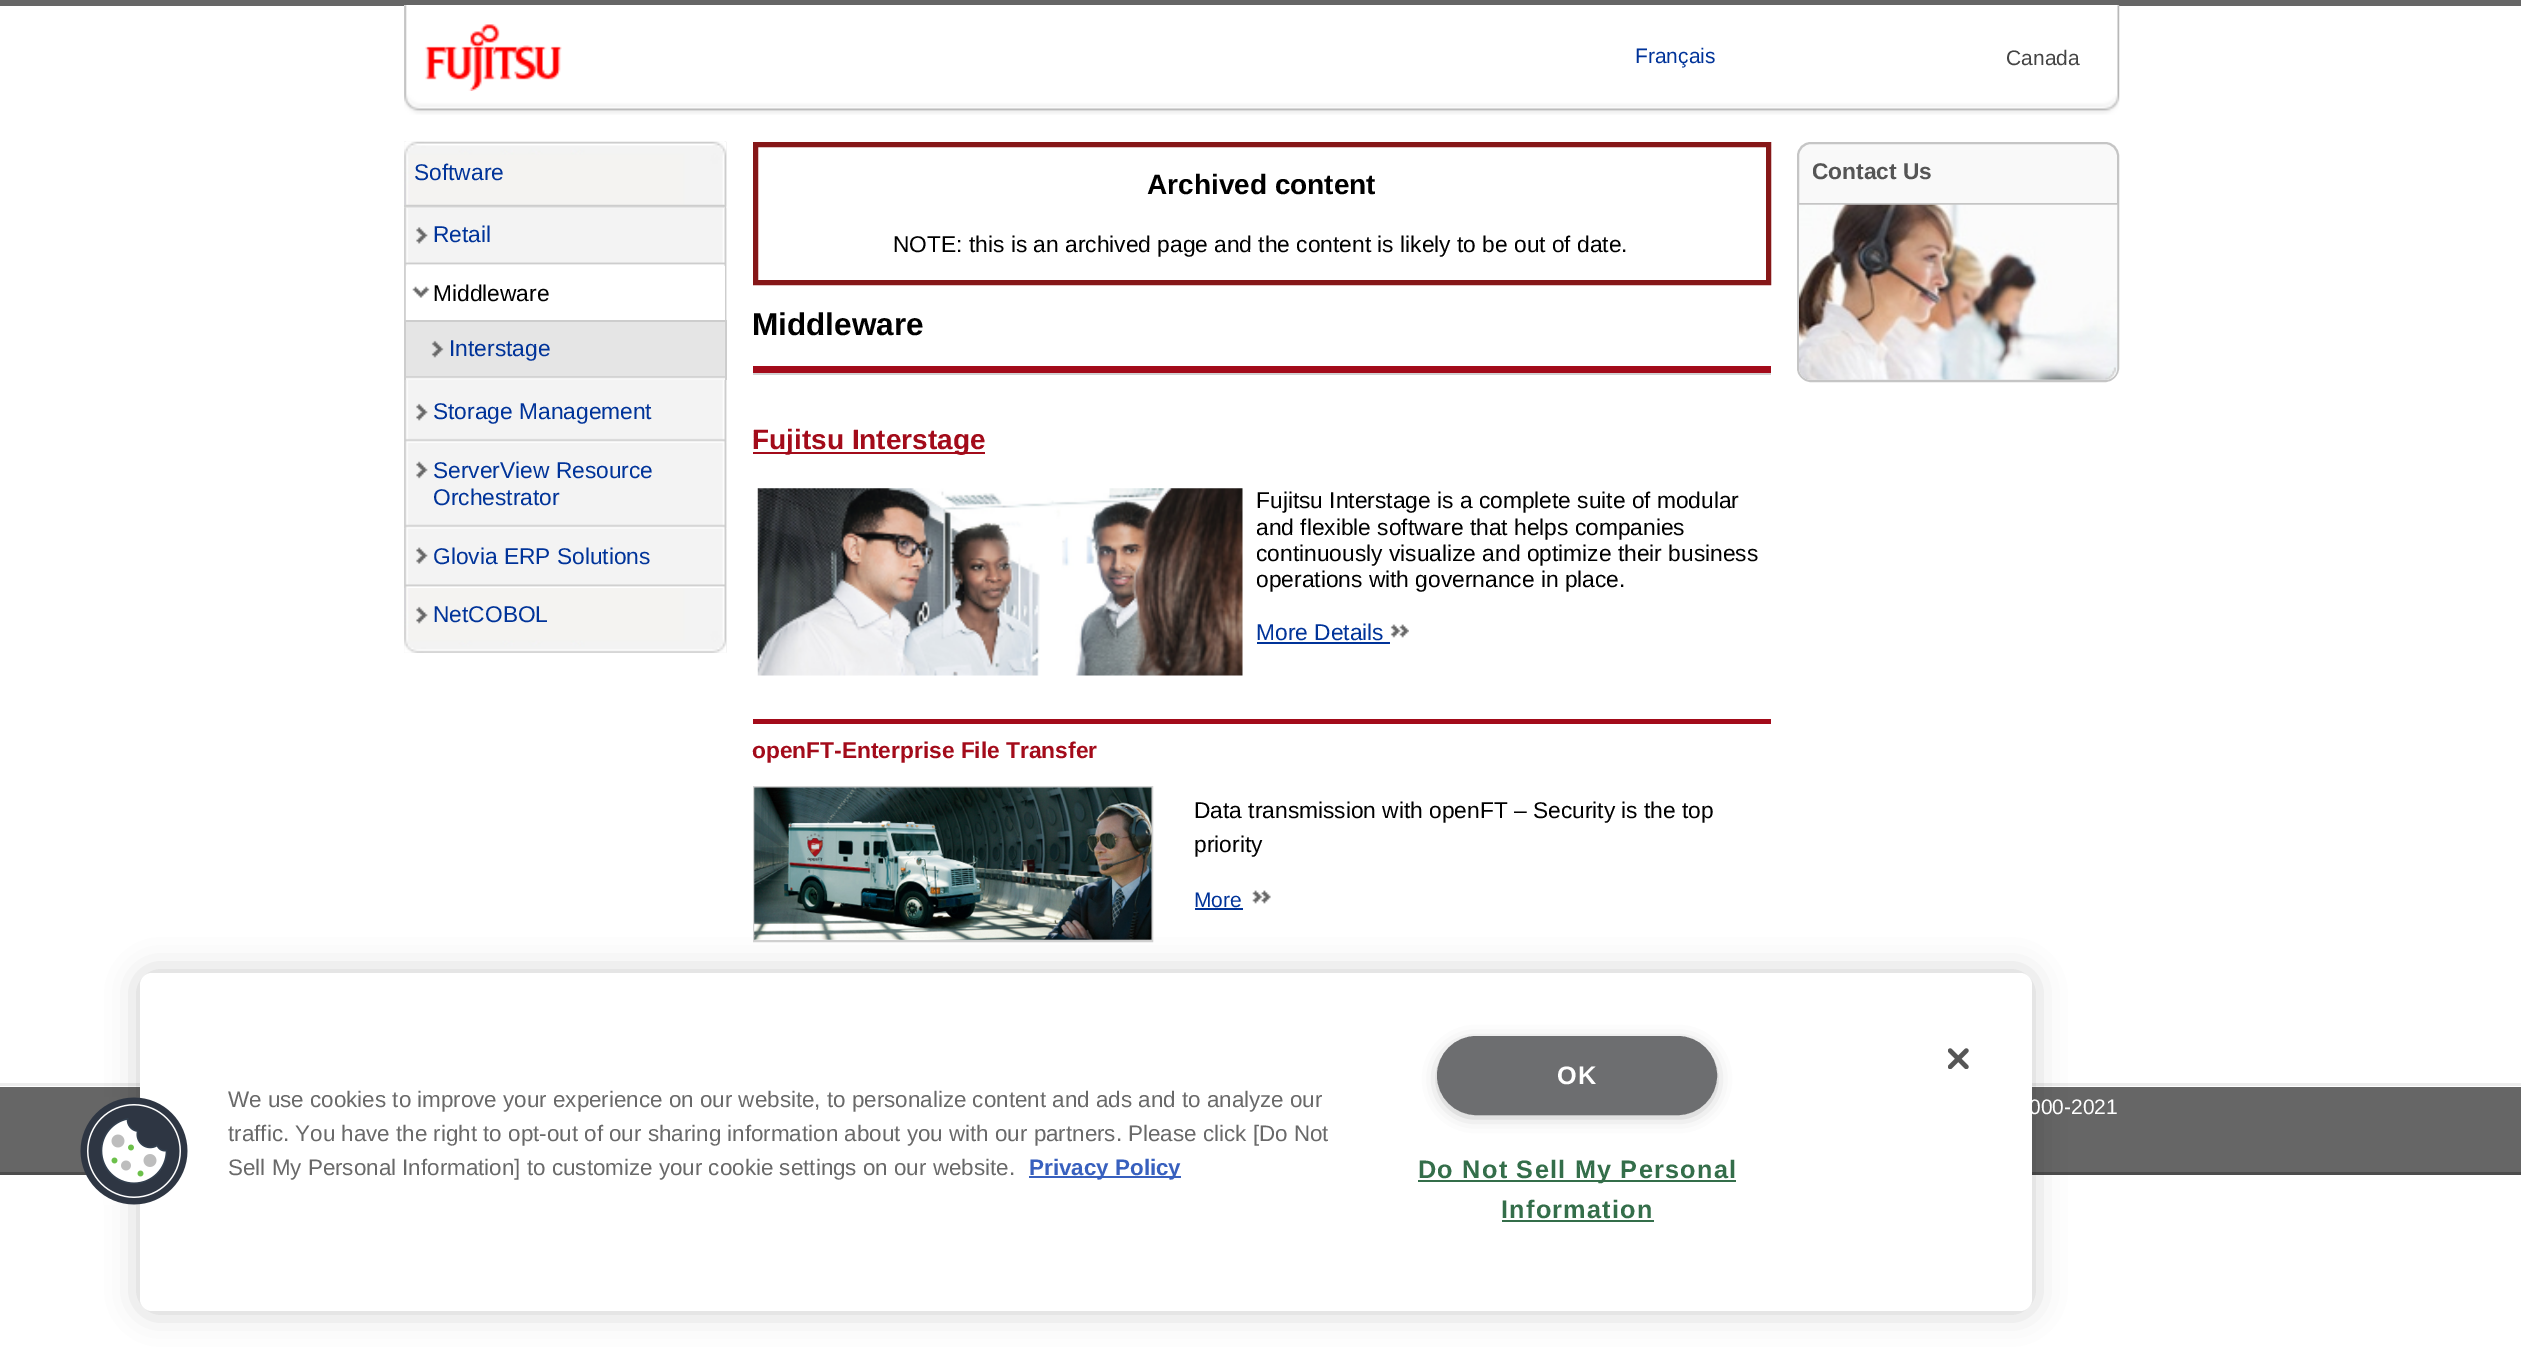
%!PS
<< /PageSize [2521 1366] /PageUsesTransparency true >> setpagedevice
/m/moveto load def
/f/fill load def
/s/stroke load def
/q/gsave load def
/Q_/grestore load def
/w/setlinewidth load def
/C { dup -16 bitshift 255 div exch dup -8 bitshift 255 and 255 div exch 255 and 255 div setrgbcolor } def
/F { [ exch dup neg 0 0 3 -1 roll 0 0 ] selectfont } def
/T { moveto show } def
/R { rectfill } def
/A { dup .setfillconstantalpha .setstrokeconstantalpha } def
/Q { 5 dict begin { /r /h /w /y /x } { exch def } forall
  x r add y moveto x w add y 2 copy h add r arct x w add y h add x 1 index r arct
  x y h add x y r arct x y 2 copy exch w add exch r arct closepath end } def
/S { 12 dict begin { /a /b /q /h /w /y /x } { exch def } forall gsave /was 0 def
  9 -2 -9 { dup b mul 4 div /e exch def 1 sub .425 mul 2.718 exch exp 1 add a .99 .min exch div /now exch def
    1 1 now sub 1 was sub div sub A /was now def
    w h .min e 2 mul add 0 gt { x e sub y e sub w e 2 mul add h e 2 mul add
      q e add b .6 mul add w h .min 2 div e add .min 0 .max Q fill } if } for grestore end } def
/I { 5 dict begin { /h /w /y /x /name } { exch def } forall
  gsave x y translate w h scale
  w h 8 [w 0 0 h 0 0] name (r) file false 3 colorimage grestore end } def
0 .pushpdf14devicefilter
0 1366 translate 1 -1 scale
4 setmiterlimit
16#FFFFFF C
0 0 2521 1366 R
16#EDEDED C
0 1083 2521 3 R
16#666666 C
0 0 2521 6 R
16#FFFFFF C
404 5 1715 1 R
(1.rgb) 404 5 1716 110 I
(2.rgb) 425 24 137 67 I
/LiberationSans-Regular 21 F
16#003399 C
(Français) 1635 63 T
16#444444 C
(Canada) 2006 65 T
(3.rgb) 404 141 323 512 I
(4.rgb) 404 141 323 66 I
16#CECFCE C
404 205 322 2 R
/LiberationSans-Regular 22.75 F
16#003399 C
(Software) 414 180 T
(5.rgb) 406 204 319 5 I
(6.rgb) 404 208 323 58 I
(7.rgb) 416 227 12 17 I
(Retail) 433 242 T
(8.rgb) 404 266 323 117 I
16#FFFFFF C
406 266 319 54 R
(9.rgb) 412 286 18 12 I
16#000000 C
(Middleware) 433 301 T
16#E5E5E5 C
406 322 318 58 R
(10.rgb) 406 376 319 4 I
16#CDCDCD C
404 320 322 2 R
726 320 1 60 R
404 320 2 60 R
(11.rgb) 431 340 13 18 I
16#003399 C
(Interstage) 449 356 T
(12.rgb) 404 383 323 60 I
(13.rgb) 416 403 12 18 I
(Storage Management) 433 419 T
(14.rgb) 404 443 323 86 I
(15.rgb) 416 461 12 18 I
(ServerView Resource) 433 478 T
(Orchestrator) 433 505 T
(16.rgb) 404 529 323 59 I
(17.rgb) 416 547 12 17 I
(Glovia ERP Solutions) 433 564 T
16#F3F3F3 C
404 588 322 65 R
(18.rgb) 404 588 323 65 I
(19.rgb) 416 606 12 18 I
16#003399 C
(NetCOBOL) 433 622 T
16#861718 C
5 w
755.5 144.5 1013 138 rectstroke
/LiberationSans-Bold 28 F
16#000000 C
(Archived content) 1147 194 T
/LiberationSans-Regular 22.75 F
(NOTE: this is an archived page and the content is likely to be out of date.) 893 252 T
/LiberationSans-Bold 31.5 F
(Middleware) 752 335 T
16#A30B1A C
753 366 1018 7 R
16#D2D2D2 C
753 373 1018 2 R
16#A30B1A C
753 452 232 2 R
/LiberationSans-Bold 28 F
(Fujitsu Interstage) 752 449 T
(20.rgb) 757 488 486 188 I
/LiberationSans-Regular 22.75 F
16#000000 C
(Fujitsu Interstage is a complete suite of modular) 1256 508 T
(and flexible software that helps companies) 1256 535 T
(continuously visualize and optimize their business) 1256 561 T
(operations with governance in place.) 1256 587 T
16#003399 C
(More Details) 1256 640 T
1257 642 133 2 R
(21.rgb) 1390 624 19 14 I
16#A30B1A C
753 719 1018 5 R
/LiberationSans-Bold 22.75 F
(openFT-Enterprise File Transfer) 752 758 T
16#D2D2D2 C
2 w
754 787 398 154 rectstroke
(22.rgb) 754 787 398 153 I
/LiberationSans-Regular 22.75 F
16#000000 C
(Data transmission with openFT – Security is the top) 1194 818 T
(priority) 1194 852 T
/LiberationSans-Regular 21 F
16#003399 C
(More) 1194 907 T
1195 908 48 2 R
(23.rgb) 1252 890 19 14 I
(24.rgb) 1798 142 321 239 I
16#C5C5C5 C
1798 143 320 238 13 Q s
/LiberationSans-Bold 22.75 F
16#555555 C
(Contact Us) 1812 179 T
16#C5C5C5 C
1799 203 319 2 R
(25.rgb) 1799 204 319 176 I
(26.rgb) 1800 367 316 13 I
16#666666 C
0 1087 2521 85 R
16#4C4C4C C
0 1172 2521 3 R
16#000000 C
140 973 1892 338 12 16 .2 S
16#FFFFFF C
140 973 1892 338 12 Q f
(27.rgb) 80 1097 108 108 I
(28.rgb) 1948 1048 21 21 I
/LiberationSans-Regular 22.4 F
16#696969 C
(We use cookies to improve your experience on our website, to personalize content and ads and to analyze our) 228 1107 T
(traffic. You have the right to opt-out of our sharing information about you with our partners. Please click [Do Not) 228 1141 T
(Sell My Personal Information] to customize your cookie settings on our website.) 228 1175 T
16#3860BE C
1029 1176 152 2 R
/LiberationSans-Bold 22.4 F
(Privacy Policy) 1029 1175 T
16#999999 C
1442 1045 270 68 34 9 1 S
16#6D6E70 C
1438 1037 278 77 38.5 Q q f Q_
s
/LiberationSans-Bold 25.25 F
16#FFFFFF C
1557 1084 m 1.25 0 (OK) ashow
16#346E4A C
1418 1180 318 2 R
1418 1178 m 1.25 0 (Do Not Sell My Personal) ashow
1501 1218 m 1.25 0 (Information) ashow
1502 1220 152 2 R
/LiberationSans-Regular 21 F
16#FFFFFF C
(000-2021) 2029 1114 T
.poppdf14devicefilter showpage
